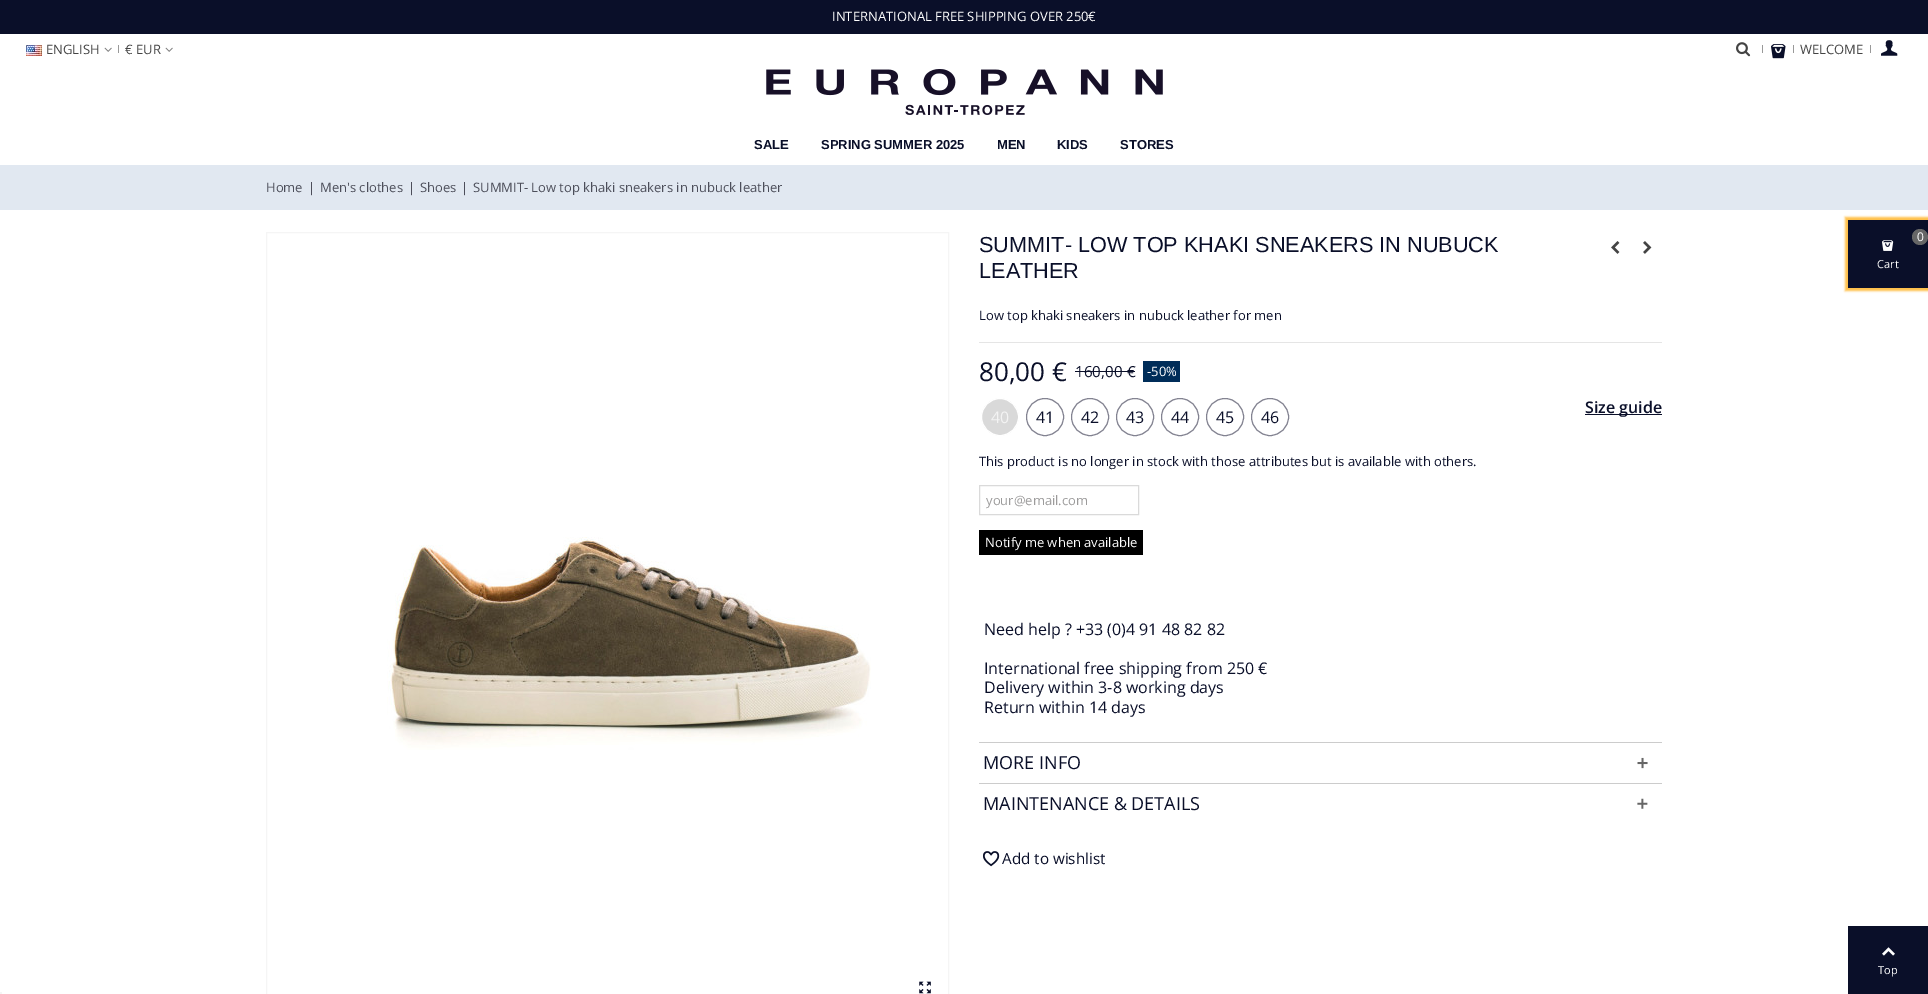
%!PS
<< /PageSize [1928 994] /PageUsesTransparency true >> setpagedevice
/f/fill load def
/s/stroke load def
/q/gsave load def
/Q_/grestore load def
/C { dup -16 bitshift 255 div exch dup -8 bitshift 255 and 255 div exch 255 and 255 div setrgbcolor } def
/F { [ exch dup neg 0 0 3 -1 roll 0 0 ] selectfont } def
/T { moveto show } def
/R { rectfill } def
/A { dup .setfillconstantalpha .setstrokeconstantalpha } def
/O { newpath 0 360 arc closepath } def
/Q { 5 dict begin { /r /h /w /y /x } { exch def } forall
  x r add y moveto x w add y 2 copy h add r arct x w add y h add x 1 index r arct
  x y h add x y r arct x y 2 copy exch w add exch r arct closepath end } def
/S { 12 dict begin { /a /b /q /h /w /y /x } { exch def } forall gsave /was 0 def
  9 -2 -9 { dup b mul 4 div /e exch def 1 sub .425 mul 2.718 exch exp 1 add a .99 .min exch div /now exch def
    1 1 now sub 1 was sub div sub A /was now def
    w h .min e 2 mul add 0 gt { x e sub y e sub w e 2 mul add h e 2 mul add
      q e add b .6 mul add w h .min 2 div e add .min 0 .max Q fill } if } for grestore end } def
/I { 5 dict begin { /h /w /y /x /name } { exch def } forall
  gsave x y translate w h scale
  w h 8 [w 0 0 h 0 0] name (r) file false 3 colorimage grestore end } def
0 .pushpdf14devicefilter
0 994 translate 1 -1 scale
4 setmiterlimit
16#FFFFFF C
0 0 1928 994 R
16#0A0F29 C
0 0 1928 34 R
/OpenSans-Regular 13 F
16#FFFFFF C
(INTERNATIONAL FREE SHIPPING OVER 250€) 832 21 T
(1.rgb) 26 45 16 11 I
16#444444 C
(ENGLISH) 46 54 T
(2.rgb) 104 47 8 5 I
16#999999 C
118 45 1 8 R
16#444444 C
(€ EUR) 125 54 T
(2.rgb) 165 47 8 5 I
(3.rgb) 1736 42 15 15 I
16#999999 C
1762 45 1 8 R
(4.rgb) 1771 44 15 15 I
1793 45 1 8 R
16#444444 C
(WELCOME) 1800 54 T
16#999999 C
1870 45 1 8 R
(5.rgb) 1881 40 17 16 I
(6.rgb) 766 69 397 46 I
/LiberationSans-Bold 13 F
16#0A0F29 C
(SALE) 754 149 T
(SPRING SUMMER 2025) 821 149 T
(MEN) 997 149 T
(KIDS) 1057 149 T
(STORES) 1120 149 T
16#E1E8F1 C
0 165 1928 45 R
/OpenSans-Regular 13 F
16#4C4E5A C
(Home) 266 192 T
(|) 308 192 T
(Men's clothes) 320 192 T
(|) 408 192 T
(Shoes) 420 192 T
(|) 461 192 T
(SUMMIT- Low top khaki sneakers in nubuck leather) 473 192 T
16#F5F5F5 C
266.5 232.5 682 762 rectstroke
(7.rgb) 387 537 484 213 I
(8.rgb) 919 981 12 13 I
/LiberationSans-Regular 21.7 F
16#0A0F29 C
(SUMMIT- LOW TOP KHAKI SNEAKERS IN NUBUCK) 979 252 T
(LEATHER) 979 278 T
(9.rgb) 1611 241 9 13 I
(10.rgb) 1643 241 9 13 I
/OpenSans-Regular 13 F
(Low top khaki sneakers in nubuck leather for men) 979 320 T
16#E5E5E5 C
979 342 683 1 R
/OpenSans-Regular 26 F
16#0A0F29 C
(80,00 €) 979 381 T
/OpenSans-Regular 15.25 F
(160,00 €) 1075 377 T
1075 371 60 1 R
16#002D59 C
1143 361 37 21 R
/OpenSans-Regular 13 F
16#FFFFFF C
(-50%) 1147 376 T
16#D9D9D9 C
1000 417 18.5 O q f Q_
16#FFFFFF C
s
/OpenSans-Regular 16 F
16#F3F3F3 C
(40) 991 423 T
16#838391 C
1045 417 18.5 O s
16#0A0F29 C
(41) 1036 423 T
16#838391 C
1090 417 18.5 O s
16#0A0F29 C
(42) 1081 423 T
16#838391 C
1135 417 18.5 O s
16#0A0F29 C
(43) 1126 423 T
16#838391 C
1180 417 18.5 O s
16#0A0F29 C
(44) 1171 423 T
16#838391 C
1225 417 18.5 O s
16#0A0F29 C
(45) 1216 423 T
16#838391 C
1270 417 18.5 O s
16#0A0F29 C
(46) 1261 423 T
1585 414 77 1 R
/OpenSans-SemiBold 16 F
(Size guide) 1585 413 T
/OpenSans-Regular 13 F
(This product is no longer in stock with those attributes but is available with others.) 979 466 T
16#DADADA C
979.5 485.5 159 29 rectstroke
16#9C9B9B C
(your@email.com) 986 505 T
16#000000 C
979 530 164 25 R
16#FFFFFF C
(Notify me when available) 985 547 T
/OpenSans-Regular 16 F
16#0A0F29 C
(Need help ? +33 \(0\)4 91 48 82 82) 984 635 T
(International free shipping from 250 €) 984 674 T
(Delivery within 3-8 working days) 984 693 T
(Return within 14 days) 984 713 T
16#CCCCCC C
979 742 683 1 R
/OpenSans-Regular 18 F
16#0A0F29 C
(MORE INFO) 983 769 T
(11.rgb) 1637 757 11 12 I
16#CCCCCC C
979 783 683 1 R
16#0A0F29 C
(MAINTENANCE & DETAILS) 983 810 T
(12.rgb) 1637 798 11 11 I
(13.rgb) 983 851 17 16 I
/OpenSans-Regular 15.25 F
(Add to wishlist) 1002 864 T
16#FFA700 C
1845 217 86 74 0 1 .72 S
16#0A0F29 C
1848 220 80 68 R
16#666666 C
1920 237 8 O f
/OpenSans-Regular 12 F
16#FFFFFF C
(0) 1917 241 T
(14.rgb) 1882 240 12 11 I
/OpenSans-Regular 11 F
(Cart) 1877 268 T
16#0A0F29 C
1848 926 80 68 R
(15.rgb) 1882 947 13 9 I
16#FFFFFF C
(Top) 1878 974 T
16#F5F5F5 C
0 992 2 2 R
.poppdf14devicefilter showpage
